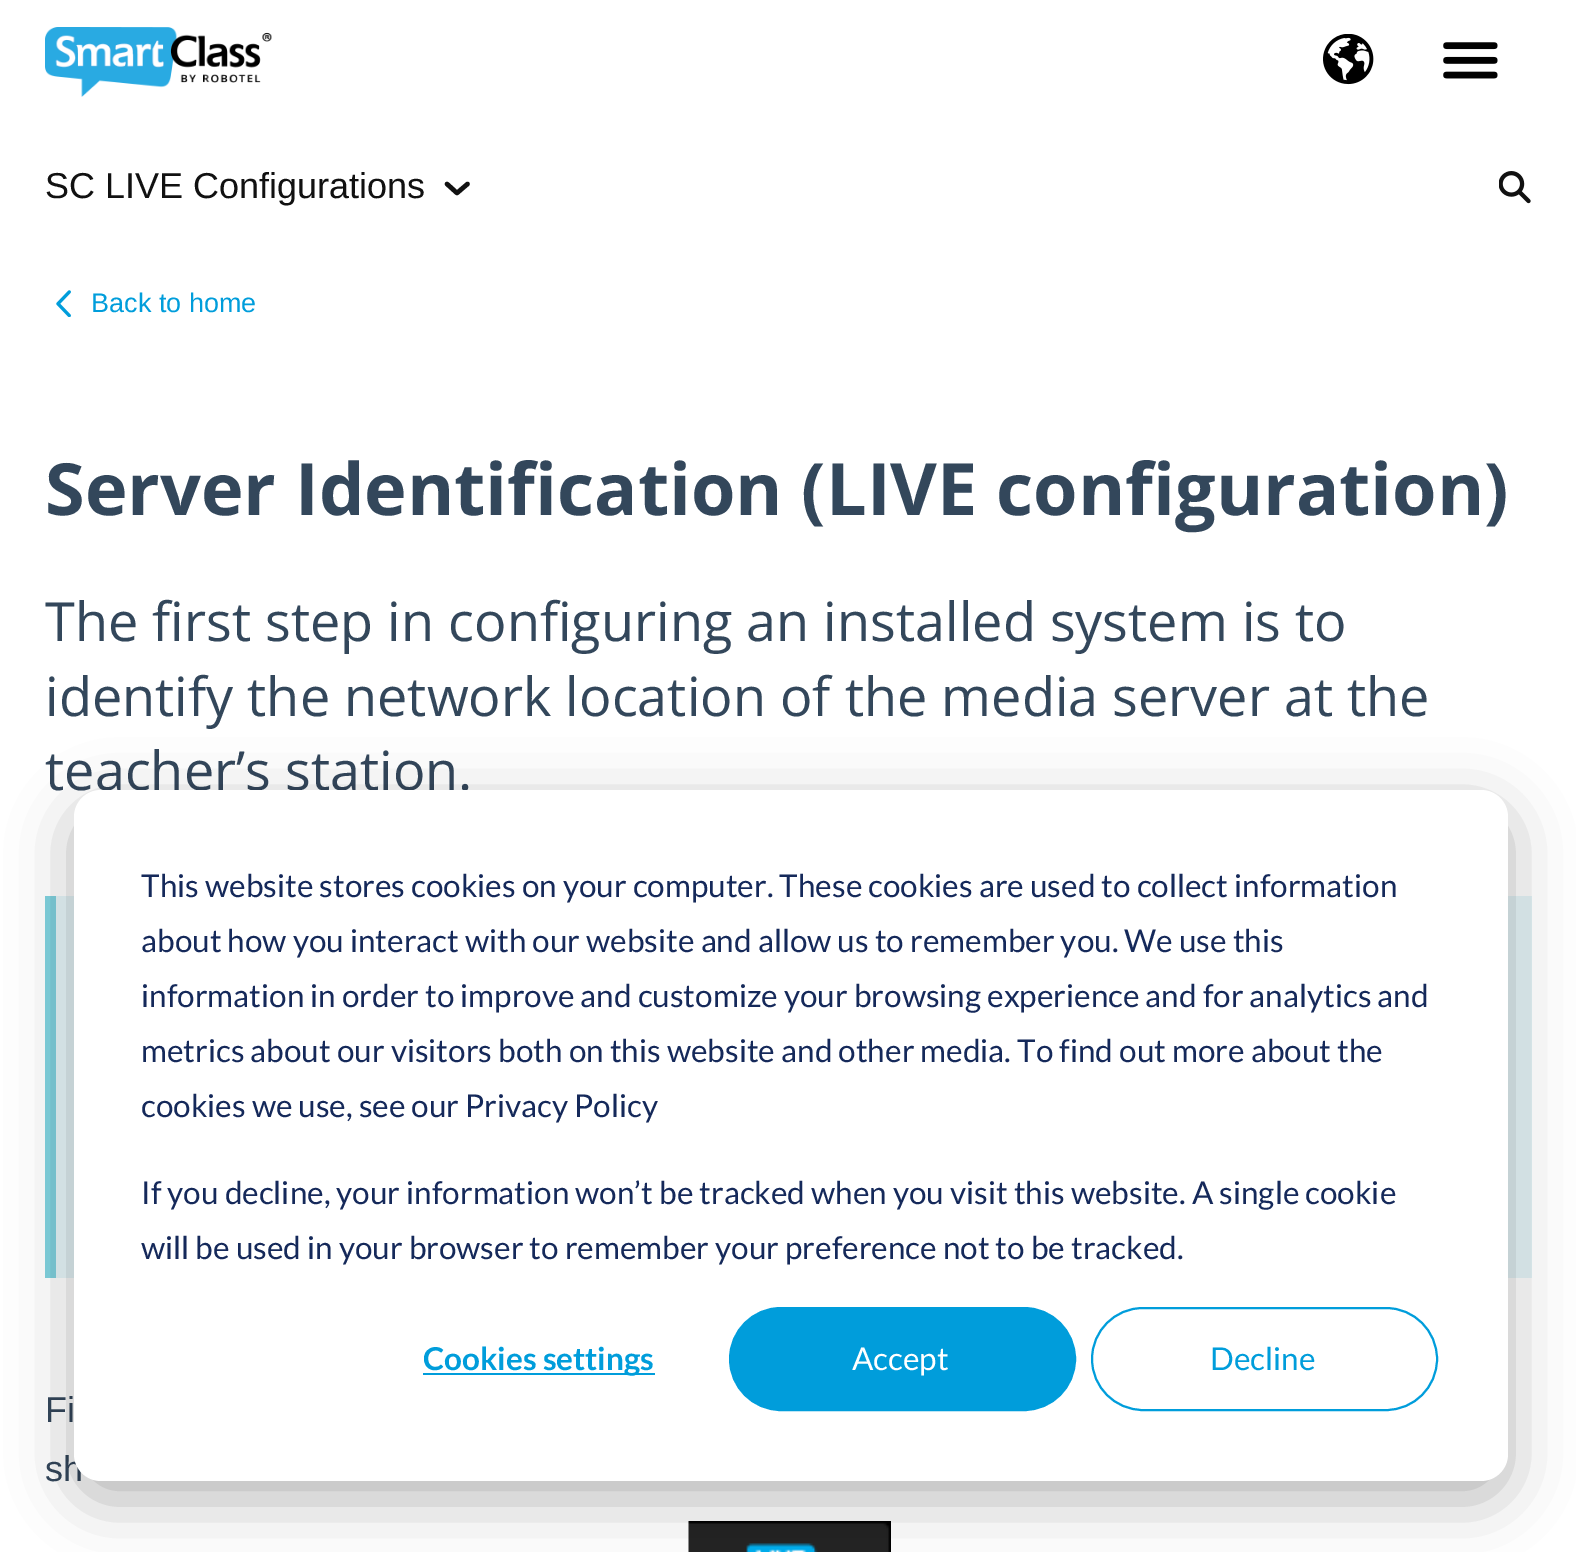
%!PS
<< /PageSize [1576 1552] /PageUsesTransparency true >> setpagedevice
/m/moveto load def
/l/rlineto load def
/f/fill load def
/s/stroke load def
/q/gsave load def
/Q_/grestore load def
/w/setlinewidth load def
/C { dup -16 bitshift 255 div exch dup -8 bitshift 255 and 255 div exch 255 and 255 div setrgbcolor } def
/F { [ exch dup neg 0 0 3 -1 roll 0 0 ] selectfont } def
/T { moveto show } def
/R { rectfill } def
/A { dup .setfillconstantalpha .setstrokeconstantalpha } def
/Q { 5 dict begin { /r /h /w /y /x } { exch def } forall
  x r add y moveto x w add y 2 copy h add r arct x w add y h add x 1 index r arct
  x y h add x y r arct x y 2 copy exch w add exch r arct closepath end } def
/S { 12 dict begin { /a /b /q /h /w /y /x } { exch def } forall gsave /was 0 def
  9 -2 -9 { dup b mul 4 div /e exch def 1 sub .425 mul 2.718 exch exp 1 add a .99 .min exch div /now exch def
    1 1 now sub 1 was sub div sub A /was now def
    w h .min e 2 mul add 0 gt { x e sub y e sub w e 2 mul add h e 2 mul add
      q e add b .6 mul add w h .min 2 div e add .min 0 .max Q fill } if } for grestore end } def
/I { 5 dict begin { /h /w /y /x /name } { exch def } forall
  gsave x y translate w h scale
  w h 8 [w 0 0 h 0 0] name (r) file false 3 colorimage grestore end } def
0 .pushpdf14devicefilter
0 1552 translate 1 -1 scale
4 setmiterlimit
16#FFFFFF C
0 0 1576 1552 R
(1.rgb) 45 27 227 70 I
(2.rgb) 1323 34 51 51 I
(3.rgb) 1443 42 55 37 I
/LiberationSans-Regular 36 F
16#111111 C
(SC LIVE Configurations) 45 198 T
4.5 w
1 setlinecap
1 setlinejoin
467.5 184 m -10.5 9 l -10 -9 l s
(4.rgb) 1499 171 32 33 I
(5.rgb) 56 290 15 27 I
/LiberationSans-Regular 27 F
16#009DDB C
(Back to home) 91 312 T
/OpenSans-Bold 72 F
16#33475B C
(Server Identification \(LIVE configuration\)) 45 515 T
/OpenSans-Regular 54 F
(The first step in configuring an installed system is to) 45 641 T
(identify the network location of the media server at the) 45 716 T
(teacher’s station.) 45 790 T
16#E5F5F8 C
56 896 1476 382 R
16#7FD1DE C
45 896 11 382 R
/LiberationSans-Regular 36 F
16#33475B C
(Fi) 45 1422 T
(sh) 45 1481 T
(6.rgb) 688 1521 203 31 I
16#000000 C
74 808 1434 691 27 31.5 .28 S
16#FFFFFF C
74 790 1434 691 27 Q f
/Lato-Regular 31.5 F
16#15295A C
(This website stores cookies on your computer. These cookies are used to collect information) 141 897 T
(about how you interact with our website and allow us to remember you. We use this) 141 952 T
(information in order to improve and customize your browsing experience and for analytics and) 141 1007 T
(metrics about our visitors both on this website and other media. To find out more about the) 141 1062 T
(cookies we use, see our Privacy Policy) 141 1117 T
(If you decline, your information won’t be tracked when you visit this website. A single cookie) 141 1204 T
(will be used in your browser to remember your preference not to be tracked.) 141 1259 T
16#009DDB C
423 1373 232 2 R
/Lato-Bold 31.5 F
(Cookies settings) 423 1370 T
730 1308 345 102 51 Q q f Q_
2 w
0 setlinecap
0 setlinejoin
s
/Lato-Regular 31.5 F
16#FFFFFF C
(Accept) 852 1370 T
16#009DDB C
1092 1308 345 102 51 Q s
(Decline) 1210 1370 T
.poppdf14devicefilter showpage
